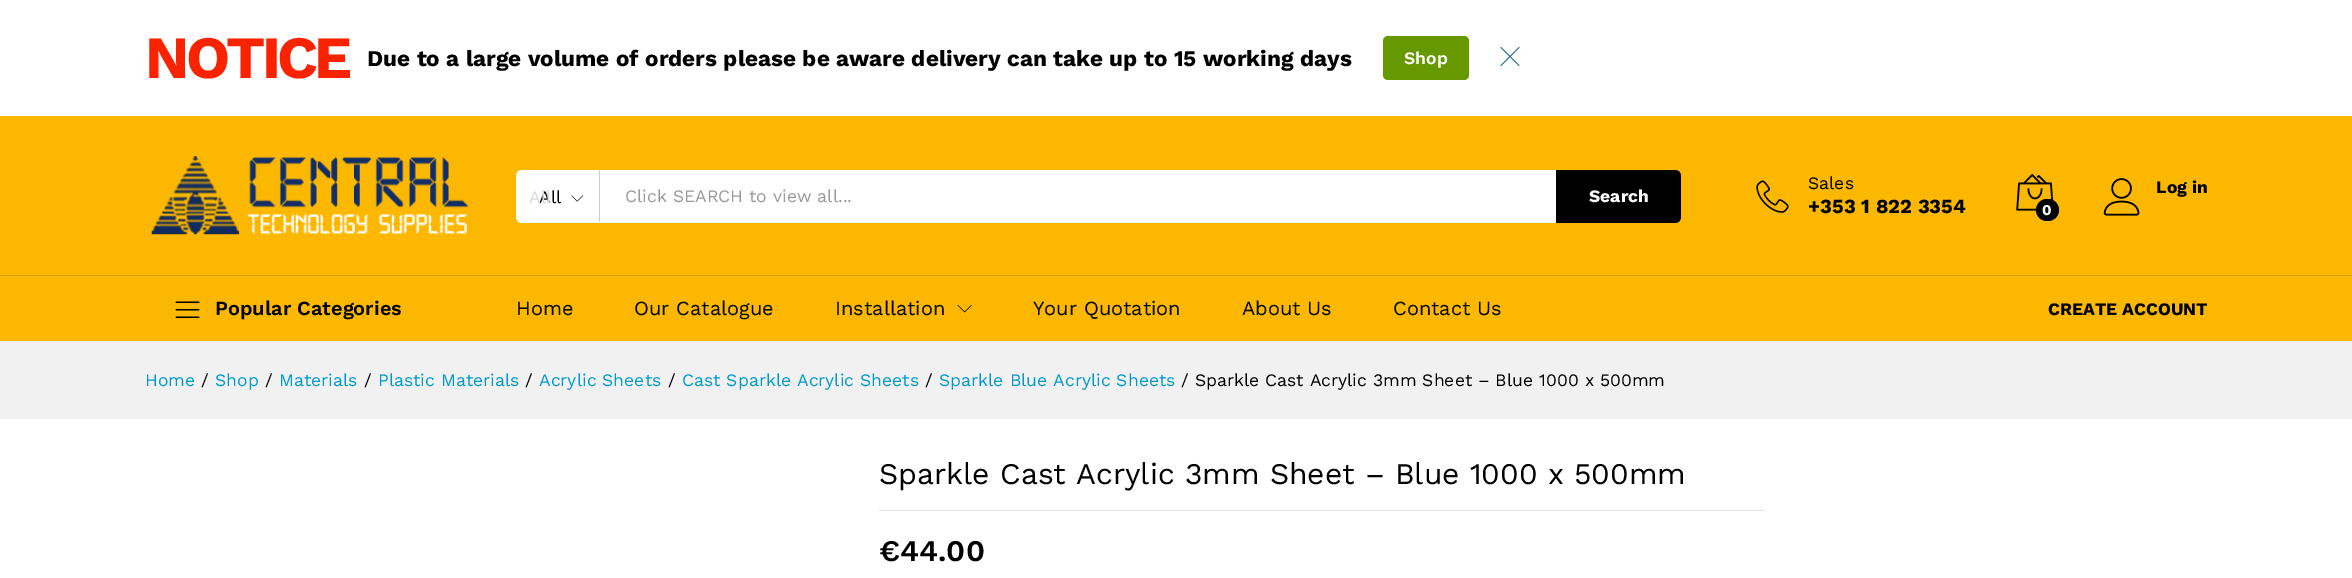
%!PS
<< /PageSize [2352 578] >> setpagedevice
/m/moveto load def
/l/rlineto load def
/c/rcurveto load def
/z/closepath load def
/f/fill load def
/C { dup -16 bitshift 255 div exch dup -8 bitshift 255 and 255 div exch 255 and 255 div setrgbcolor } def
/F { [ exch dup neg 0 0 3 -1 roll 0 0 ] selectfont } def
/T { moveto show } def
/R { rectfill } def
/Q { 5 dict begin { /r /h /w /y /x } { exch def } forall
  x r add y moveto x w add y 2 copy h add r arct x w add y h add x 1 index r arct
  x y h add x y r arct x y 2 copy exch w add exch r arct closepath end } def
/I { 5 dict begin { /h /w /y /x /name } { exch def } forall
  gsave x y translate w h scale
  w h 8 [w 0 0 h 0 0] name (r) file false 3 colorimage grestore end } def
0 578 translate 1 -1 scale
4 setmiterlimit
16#FFFFFF C
0 0 2352 578 R
/WorkSans-Bold 60 F
16#F92300 C
145 78 m -3.75 0 (NOTICE) ashow
/WorkSans-Bold 22.5 F
16#000000 C
(Due to a large volume of orders please be aware delivery can take up to 15 working days) 367 66 T
16#669900 C
1383 36 86 44 5 Q f
/WorkSans-SemiBold 17.5 F
16#FFFFFF C
(Shop) 1404 64 T
(1.rgb) 1500 47 20 19 I
16#FCB800 C
0 116 2352 225 R
(2.rgb) 151 156 317 79 I
16#FFFFFF C
522 170 m 78 0 l 0 53 l -78 0 l -3.5 0 -6 -2.5 -6 -6 c 0 -41 l 0 -3.5 2.5 -6 6 -6 c z f
/WorkSans-Regular 17.5 F
16#000000 C
(All) 539 203 T
16#D9D9D9 C
(All) 529 203 T
16#CCCCCC C
600 170 m -1 1 l 0 50 l -1 0 l 2 1 l z f
(3.rgb) 571 195 13 7 I
16#FFFFFF C
600 170 956 53 R
16#999999 C
(Click SEARCH to view all...) 625 202 T
16#000000 C
1556 170 m 119 0 l 3.5 0 6 2.5 6 6 c 0 41 l 0 3.5 -2.5 6 -6 6 c -119 0 l z f
/WorkSans-Bold 17.5 F
16#FFFFFF C
(Search) 1589 202 T
(4.rgb) 1756 180 33 33 I
/WorkSans-Regular 17.5 F
16#000000 C
(Sales) 1808 189 T
/WorkSans-Bold 20 F
(+353 1 822 3354) 1808 213 T
(5.rgb) 2103 178 37 38 I
/WorkSans-Bold 17.5 F
(Log in) 2156 193 T
(6.rgb) 2016 174 38 37 I
2036 199 23 22 11 Q f
/WorkSans-Bold 15 F
16#FFFFFF C
(0) 2042 215 T
16#D69C00 C
0 275 2352 1 R
(7.rgb) 175 301 25 17 I
/WorkSans-SemiBold 20 F
16#000000 C
(Popular Categories) 215 315 T
/WorkSans-Regular 20 F
(Home) 516 315 T
(Our Catalogue) 634 315 T
(Installation) 835 315 T
(8.rgb) 957 304 15 9 I
(Your Quotation) 1033 315 T
(About Us) 1242 315 T
(Contact Us) 1393 315 T
/WorkSans-Bold 17.5 F
(CREATE ACCOUNT) 2048 315 T
16#F1F1F1 C
0 341 2352 78 R
/WorkSans-Regular 17.5 F
16#0099CC C
(Home) 145 386 T
16#000000 C
(/) 201 386 T
16#0099CC C
(Shop) 215 386 T
16#000000 C
(/) 265 386 T
16#0099CC C
(Materials) 279 386 T
16#000000 C
(/) 364 386 T
16#0099CC C
(Plastic Materials) 378 386 T
16#000000 C
(/) 525 386 T
16#0099CC C
(Acrylic Sheets) 539 386 T
16#000000 C
(/) 668 386 T
16#0099CC C
(Cast Sparkle Acrylic Sheets) 682 386 T
16#000000 C
(/) 925 386 T
16#0099CC C
(Sparkle Blue Acrylic Sheets) 939 386 T
16#000000 C
(/ Sparkle Cast Acrylic 3mm Sheet – Blue 1000 x 500mm) 1181 386 T
16#E1E1E1 C
879 510 886 1 R
/WorkSans-Regular 30 F
16#000000 C
(Sparkle Cast Acrylic 3mm Sheet – Blue 1000 x 500mm) 879 484 T
/WorkSans-SemiBold 30 F
(€44.00) 879 561 T
showpage
